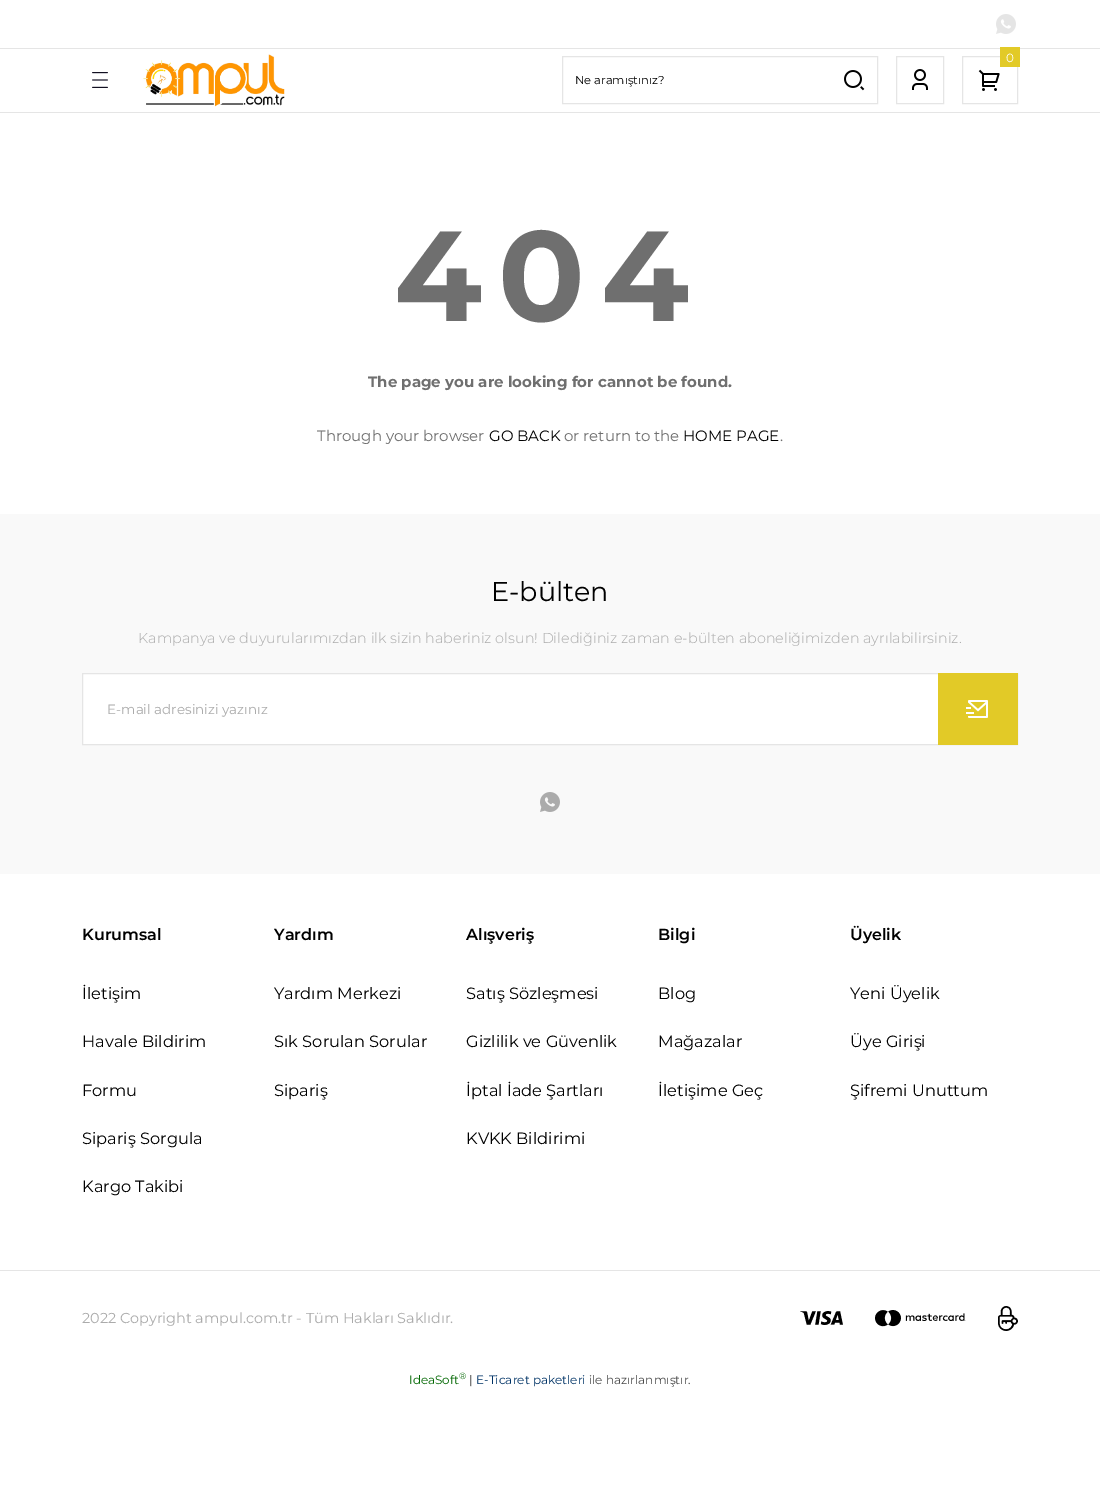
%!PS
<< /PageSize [1100 1487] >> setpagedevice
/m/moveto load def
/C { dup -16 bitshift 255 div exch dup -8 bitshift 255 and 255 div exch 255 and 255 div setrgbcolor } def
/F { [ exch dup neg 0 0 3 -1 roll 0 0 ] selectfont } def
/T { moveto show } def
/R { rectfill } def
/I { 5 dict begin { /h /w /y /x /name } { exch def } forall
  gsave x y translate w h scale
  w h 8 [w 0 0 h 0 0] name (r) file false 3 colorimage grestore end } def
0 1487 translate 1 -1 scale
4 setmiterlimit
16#FFFFFF C
0 0 1100 1487 R
16#E5E5E5 C
0 48 1100 1 R
(1.rgb) 996 14 20 20 I
0 112 1100 1 R
(2.rgb) 92 72 16 16 I
(3.rgb) 143 54 142 53 I
896.5 56.5 47 47 rectstroke
(4.rgb) 912 69 16 21 I
962.5 56.5 55 47 rectstroke
16#E2CA27 C
1000 47 20 20 R
/Montserrat-Regular 12 F
16#FFFFFF C
(0) 1006 62 T
(5.rgb) 978 69 22 22 I
16#E5E5E5 C
562.5 56.5 315 47 rectstroke
/Montserrat-Regular 11.5 F
16#000000 C
(Ne aramıştınız?) 575 84 T
(6.rgb) 844 70 21 21 I
/Montserrat-Bold 128 F
16#6F6F6F C
394 321 m 16 0 (404) ashow
/Montserrat-Bold 15 F
(The page you are looking for cannot be found.) 368 387 T
/Montserrat-Regular 15 F
(Through your browser) 317 441 T
16#000000 C
(GO BACK) 489 441 T
16#6F6F6F C
(or return to the) 564 441 T
16#000000 C
(HOME PAGE) 683 441 T
16#6F6F6F C
(.) 780 441 T
16#F9F9F9 C
0 514 1100 360 R
/Montserrat-Regular 27 F
16#000000 C
(E-bülten) 491 601 T
/Montserrat-Light 14.4 F
16#ABABAB C
(Kampanya ve duyurularımızdan ilk sizin haberiniz olsun! Dilediğiniz zaman e-bülten aboneliğimizden ayrılabilirsiniz.) 138 643 T
16#FFFFFF C
83 674 855 70 R
16#E5E5E5 C
82.5 673.5 935 71 rectstroke
/Montserrat-Regular 13.5 F
16#ABABAB C
(E-mail adresinizi yazınız) 107 714 T
16#E2CA27 C
938 673 80 72 R
(7.rgb) 966 700 22 18 I
(8.rgb) 540 792 20 20 I
16#E5E5E5 C
0 1270 1100 1 R
/Montserrat-SemiBold 16 F
16#000000 C
(Kurumsal) 82 940 T
/Montserrat-Regular 16.25 F
(İletişim) 82 999 T
(Havale Bildirim) 82 1047 T
(Formu) 82 1096 T
(Sipariş Sorgula) 82 1144 T
(Kargo Takibi) 82 1192 T
/Montserrat-SemiBold 16 F
(Yardım) 274 940 T
/Montserrat-Regular 16.25 F
(Yardım Merkezi) 274 999 T
(Sık Sorulan Sorular) 274 1047 T
(Sipariş) 274 1096 T
/Montserrat-SemiBold 16 F
(Alışveriş) 466 940 T
/Montserrat-Regular 16.25 F
(Satış Sözleşmesi) 466 999 T
(Gizlilik ve Güvenlik) 466 1047 T
(İptal İade Şartları) 466 1096 T
(KVKK Bildirimi) 466 1144 T
/Montserrat-SemiBold 16 F
(Bilgi) 658 940 T
/Montserrat-Regular 16.25 F
(Blog) 658 999 T
(Mağazalar) 658 1047 T
(İletişime Geç) 658 1096 T
/Montserrat-SemiBold 16 F
(Üyelik) 850 940 T
/Montserrat-Regular 16.25 F
(Yeni Üyelik) 850 999 T
(Üye Girişi) 850 1047 T
(Şifremi Unuttum) 850 1096 T
/Montserrat-Regular 14.4 F
16#ABABAB C
(2022 Copyright ampul.com.tr - Tüm Hakları Saklıdır.) 82 1323 T
(9.rgb) 800 1306 218 25 I
/Montserrat-Regular 12 F
16#006600 C
(IdeaSoft) 409 1384 T
/Montserrat-Regular 9 F
(®) 459 1379 T
/Montserrat-Regular 12 F
16#4B4B4B C
(|) 469 1384 T
16#003366 C
(E-Ticaret paketleri) 476 1384 T
16#4B4B4B C
(ile hazırlanmıştır.) 589 1384 T
showpage
